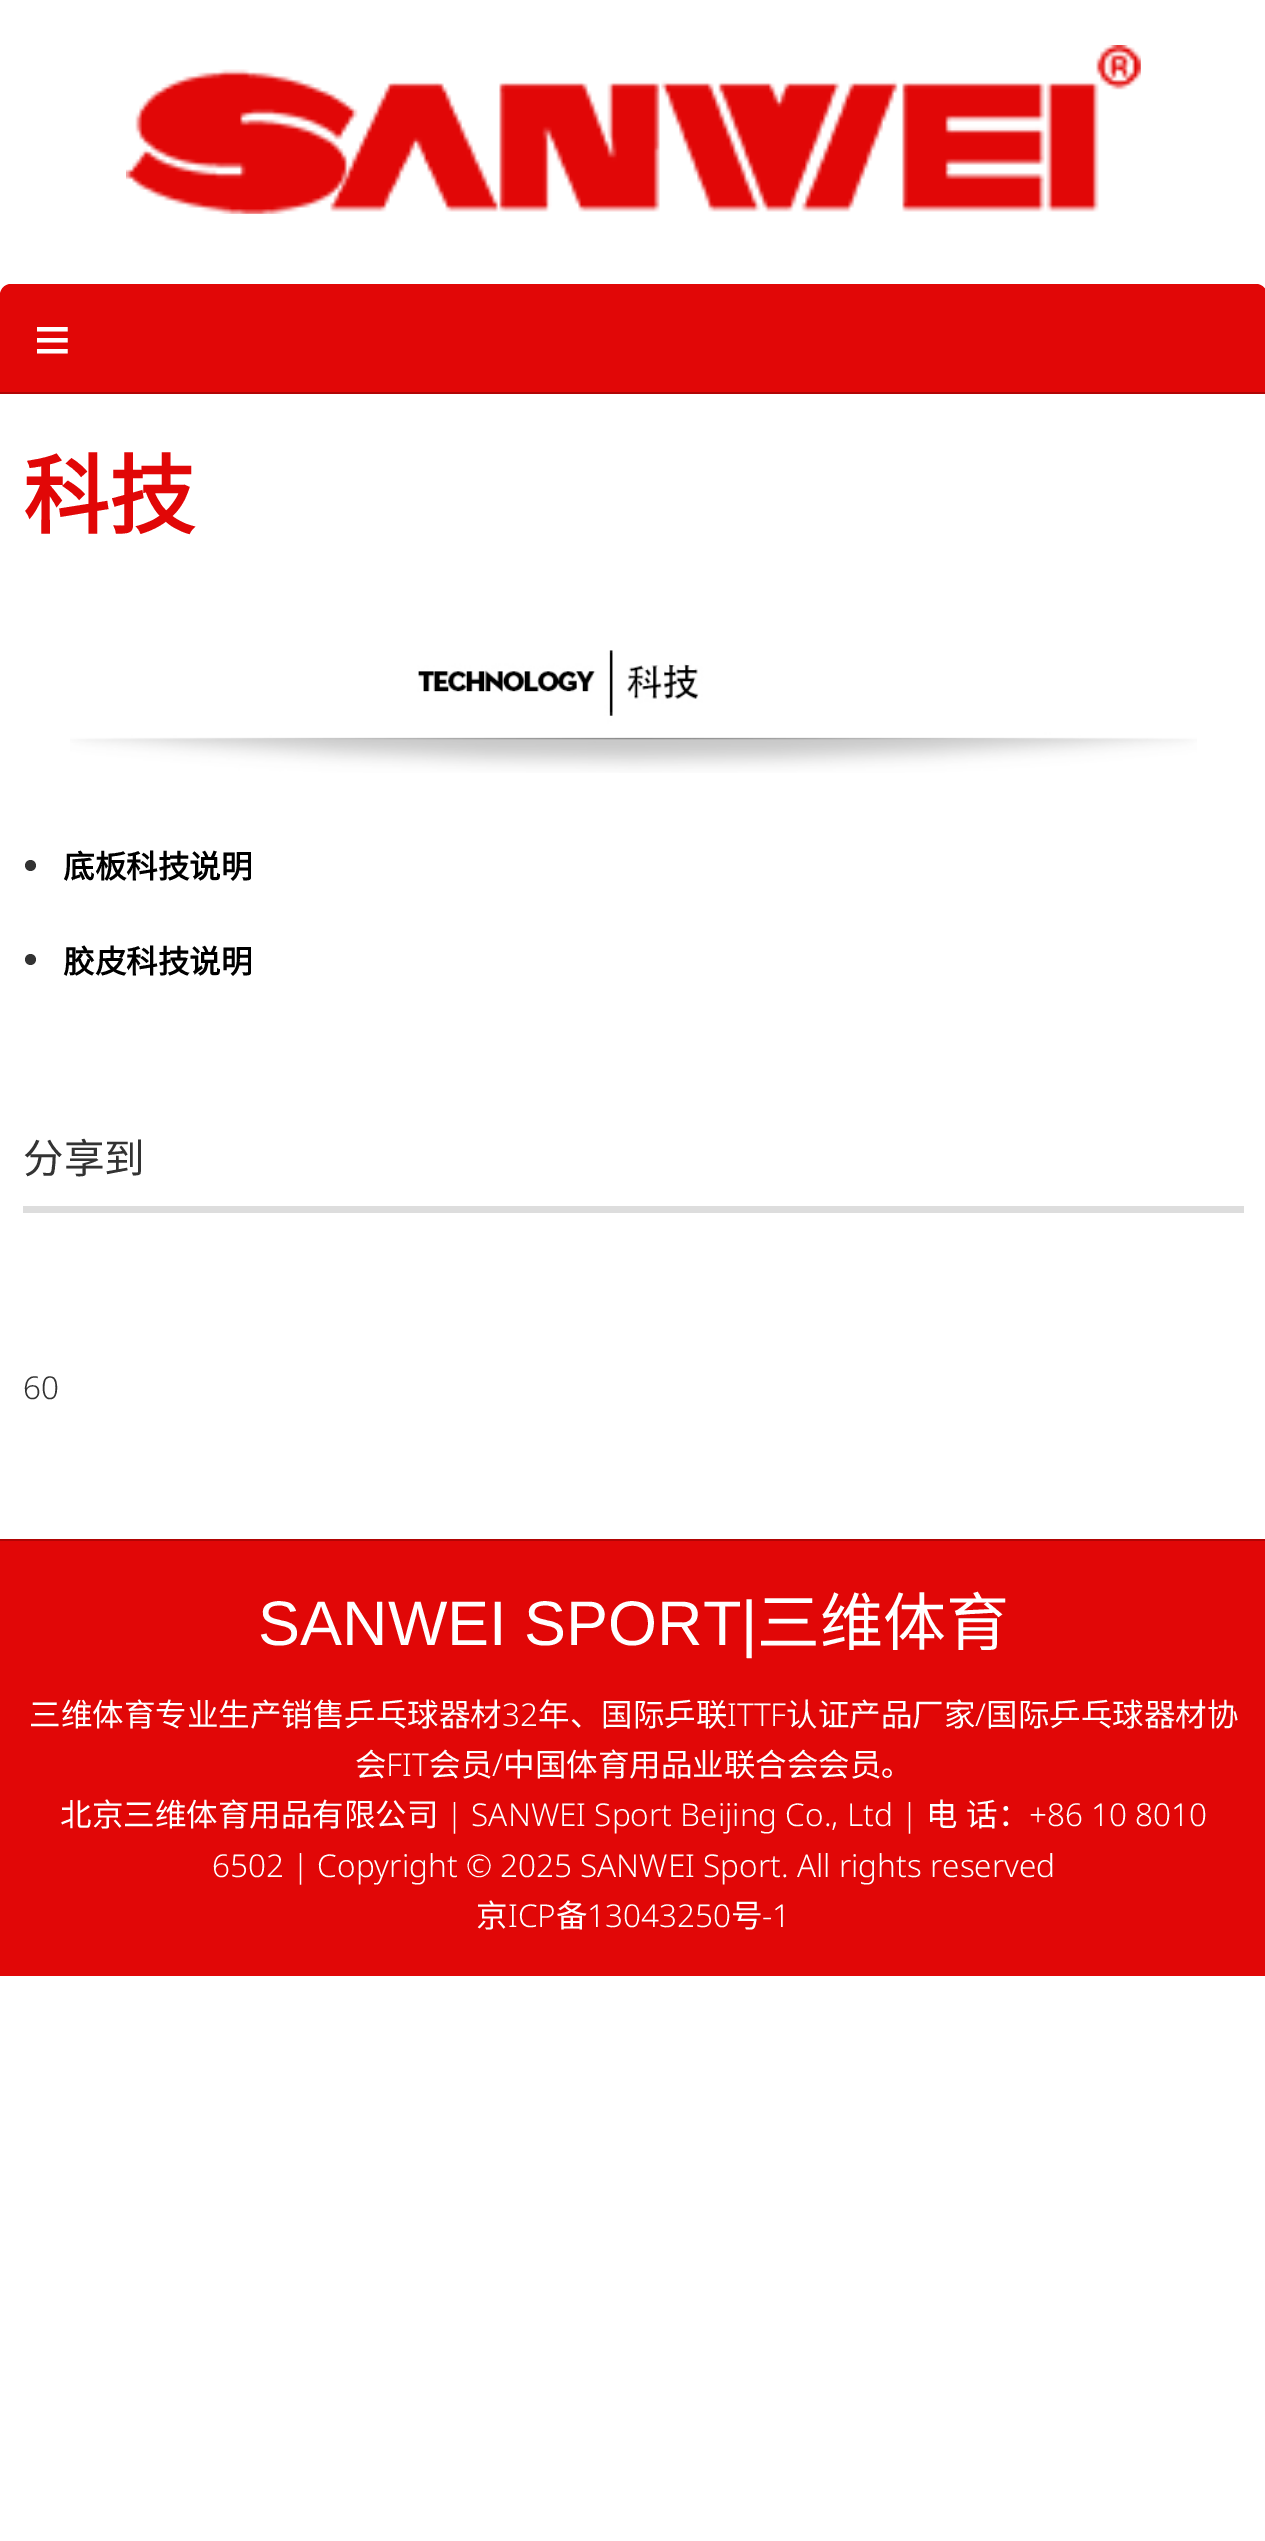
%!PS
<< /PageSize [1265 2541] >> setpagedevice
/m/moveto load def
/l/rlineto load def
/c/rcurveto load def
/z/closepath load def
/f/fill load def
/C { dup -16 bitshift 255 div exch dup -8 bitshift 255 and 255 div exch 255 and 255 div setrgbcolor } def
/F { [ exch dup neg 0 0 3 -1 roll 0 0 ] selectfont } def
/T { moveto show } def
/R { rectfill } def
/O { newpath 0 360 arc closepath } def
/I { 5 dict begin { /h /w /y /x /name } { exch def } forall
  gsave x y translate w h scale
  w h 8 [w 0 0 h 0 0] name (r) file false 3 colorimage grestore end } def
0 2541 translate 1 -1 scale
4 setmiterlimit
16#FFFFFF C
0 0 1265 2541 R
16#B00505 C
0 392 1265 2 R
(1.rgb) 126 45 1015 169 I
16#E10707 C
11 284 m 1245 0 l 6 0 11 5 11 11 c 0 97 l -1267 0 l 0 -97 l 0 -6 5 -11 11 -11 c z f
/LiberationSans-Regular 63 F
16#FFFFFF C
(≡) 34 361 T
/NotoSansCJKSC-Bold 86 F
16#E10707 C
(科技) 23 527 T
(2.rgb) 70 650 1127 123 I
16#333333 C
30.5 865.5 5.5 O f
/NotoSansCJKSC-Bold 31.5 F
16#000000 C
(底板科技说明) 63 878 T
16#333333 C
30.5 959.5 5.5 O f
16#000000 C
(胶皮科技说明) 63 973 T
16#DDDDDD C
23 1206 1221 7 R
/NotoSansCJKSC-Regular 40.5 F
16#333333 C
(分享到) 23 1173 T
/NotoSans-Light 31.5 F
(60) 23 1399 T
16#E10707 C
0 1541 1265 435 R
16#B00505 C
0 1539 1265 2 R
/LiberationSans-Regular 63 F
16#FFFFFF C
(SANWEI SPORT|) 258 1645 T
/NotoSansCJKSC-Regular 63 F
(三维体育) 757 1645 T
/NotoSansCJKSC-Regular 31.5 F
(三维体育专业生产销售乒乓球器材) 29 1726 T
/NotoSans-Light 31.5 F
(32) 502 1726 T
/NotoSansCJKSC-Regular 31.5 F
(年、国际乒联) 538 1726 T
/NotoSans-Light 31.5 F
(ITTF) 727 1726 T
/NotoSansCJKSC-Regular 31.5 F
(认证产品厂家) 786 1726 T
/NotoSans-Light 31.5 F
(/) 975 1726 T
/NotoSansCJKSC-Regular 31.5 F
(国际乒乓球器材协) 986 1726 T
(会) 355 1776 T
/NotoSans-Light 31.5 F
(FIT) 386 1776 T
/NotoSansCJKSC-Regular 31.5 F
(会员) 429 1776 T
/NotoSans-Light 31.5 F
(/) 492 1776 T
/NotoSansCJKSC-Regular 31.5 F
(中国体育用品业联合会会员。) 503 1776 T
(北京三维体育用品有限公司) 60 1826 T
/NotoSans-Light 31.5 F
(| SANWEI Sport Beijing Co., Ltd |) 446 1826 T
/NotoSansCJKSC-Regular 31.5 F
(电) 926 1826 T
(话：) 966 1826 T
/NotoSans-Light 31.5 F
(+86 10 8010) 1029 1826 T
(6502 | Copyright © 2025 SANWEI Sport. All rights reserved) 212 1877 T
/NotoSansCJKSC-Regular 31.5 F
(京) 476 1927 T
/NotoSans-Light 31.5 F
(ICP) 508 1927 T
/NotoSansCJKSC-Regular 31.5 F
(备) 556 1927 T
/NotoSans-Light 31.5 F
(13043250) 587 1927 T
/NotoSansCJKSC-Regular 31.5 F
(号) 731 1927 T
/NotoSans-Light 31.5 F
(-1) 762 1927 T
showpage
